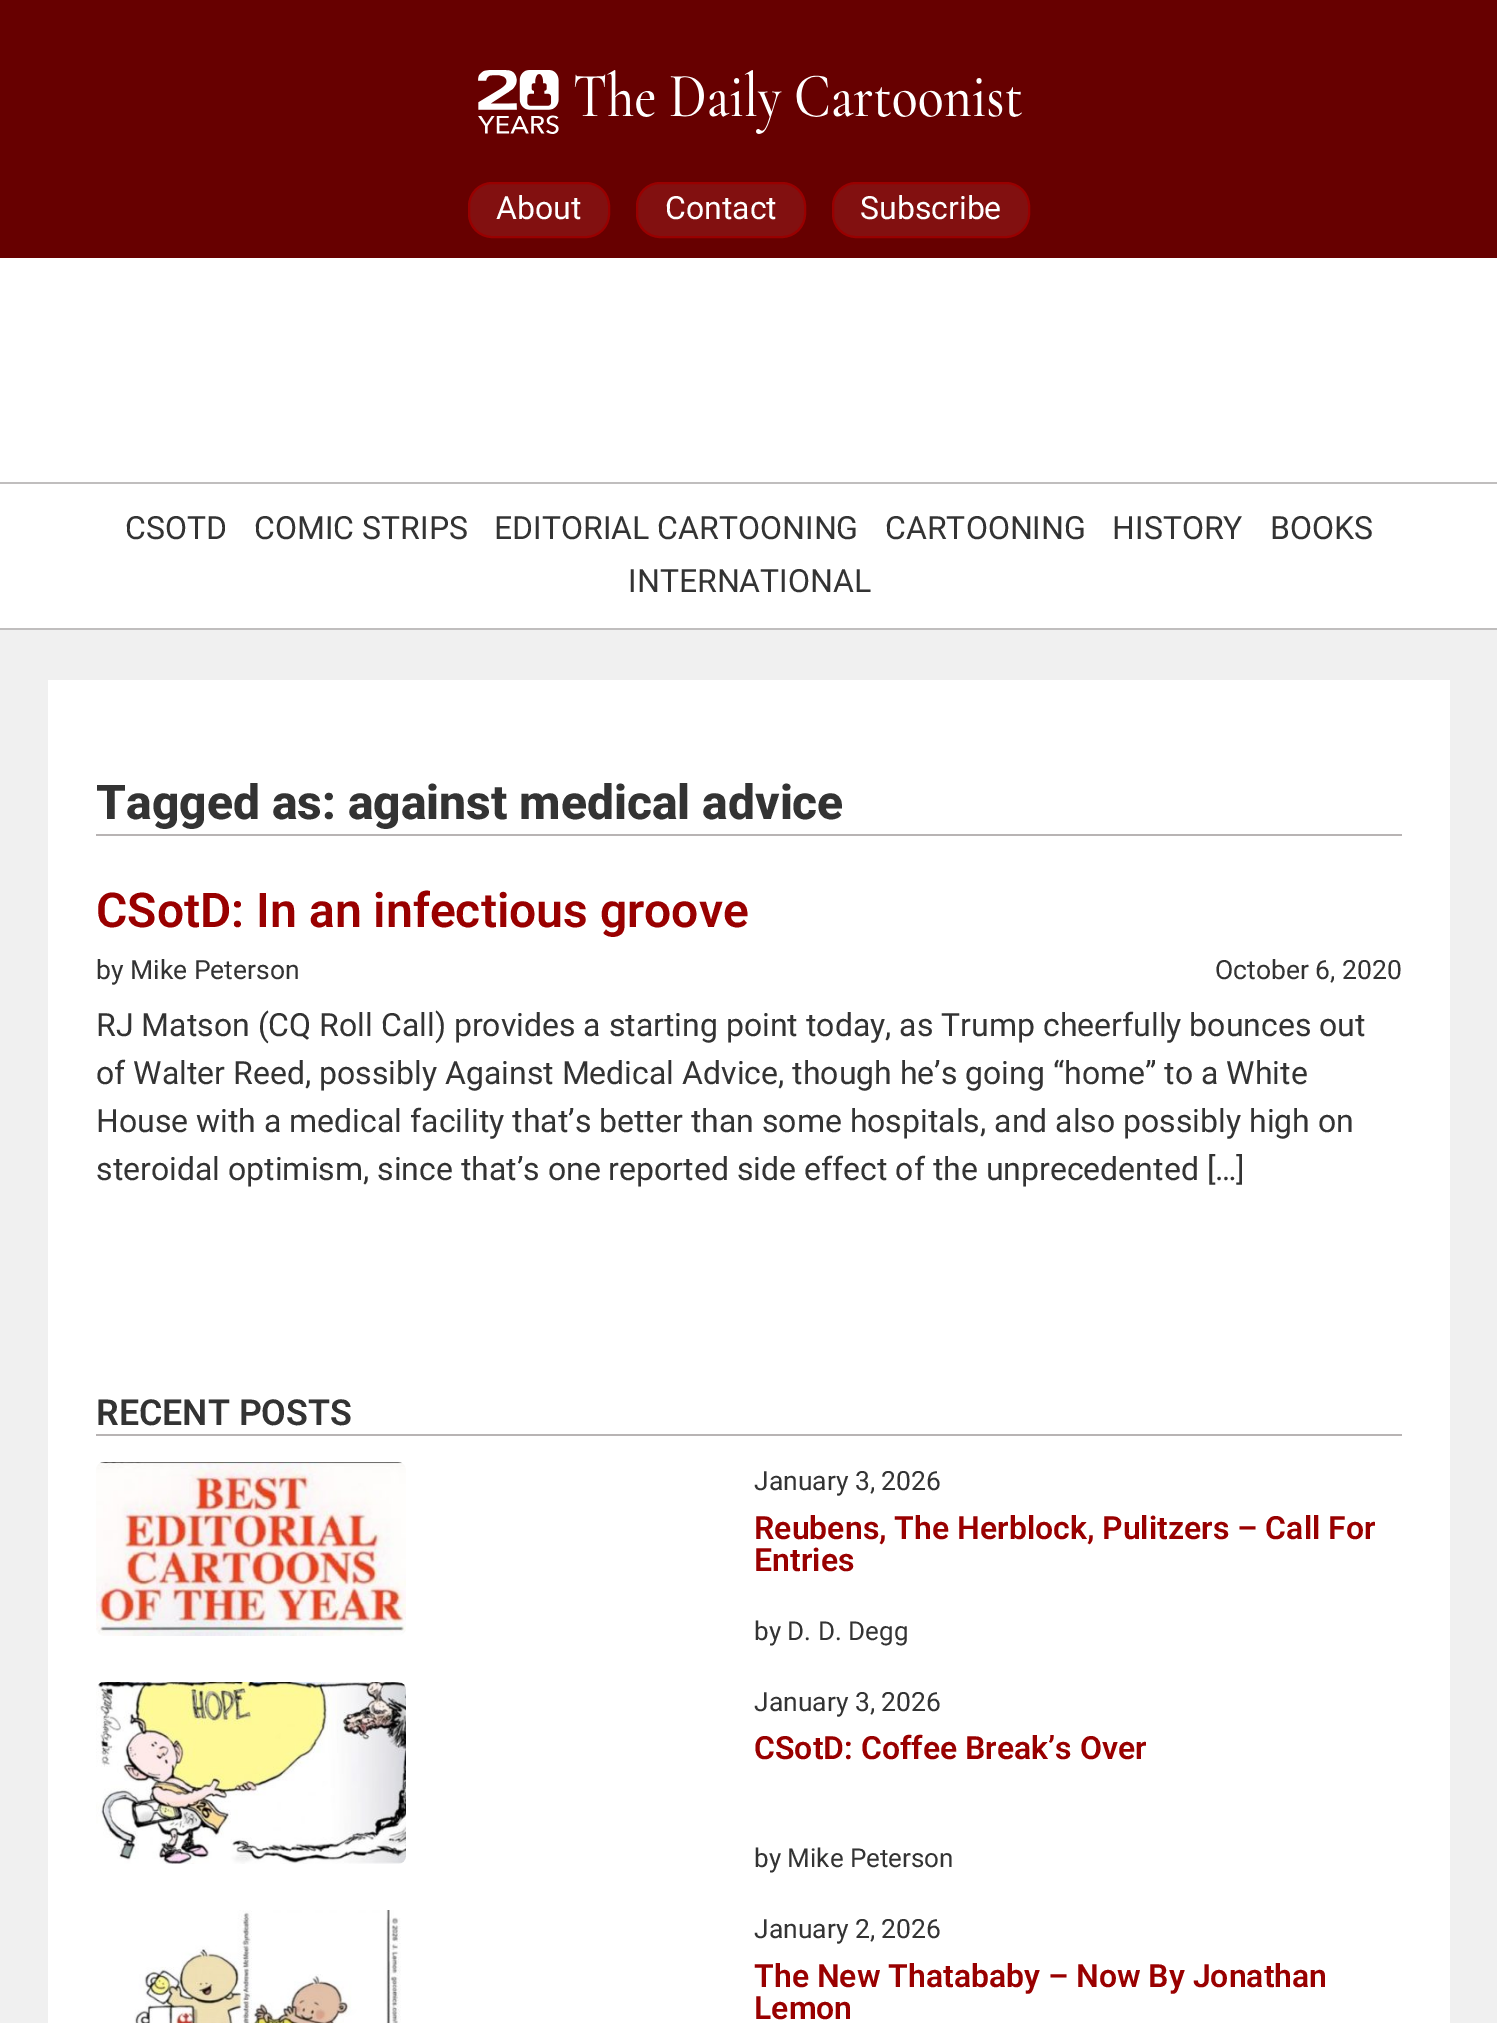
%!PS
<< /PageSize [1497 2023] >> setpagedevice
/f/fill load def
/s/stroke load def
/q/gsave load def
/Q_/grestore load def
/w/setlinewidth load def
/C { dup -16 bitshift 255 div exch dup -8 bitshift 255 and 255 div exch 255 and 255 div setrgbcolor } def
/F { [ exch dup neg 0 0 3 -1 roll 0 0 ] selectfont } def
/T { moveto show } def
/R { rectfill } def
/Q { 5 dict begin { /r /h /w /y /x } { exch def } forall
  x r add y moveto x w add y 2 copy h add r arct x w add y h add x 1 index r arct
  x y h add x y r arct x y 2 copy exch w add exch r arct closepath end } def
/I { 5 dict begin { /h /w /y /x /name } { exch def } forall
  gsave x y translate w h scale
  w h 8 [w 0 0 h 0 0] name (r) file false 3 colorimage grestore end } def
0 2023 translate 1 -1 scale
4 setmiterlimit
16#F0F0F0 C
0 0 1497 2023 R
16#FFFFFF C
0 258 1497 370 R
16#670000 C
0 0 1497 258 R
(1.rgb) 478 70 544 64 I
16#821010 C
469 183 140 54 23 Q q f Q_
16#990000 C
2 w
s
/Roboto-Regular 32 F
16#FFFFFF C
(About) 496 219 T
16#821010 C
637 183 168 54 23 Q q f Q_
16#990000 C
s
16#FFFFFF C
(Contact) 665 219 T
16#821010 C
833 183 196 54 23 Q q f Q_
16#990000 C
s
16#FFFFFF C
(Subscribe) 860 219 T
16#C0BEBE C
0 482 1497 2 R
0 628 1497 2 R
16#333333 C
(CSOTD) 125 539 T
(COMIC STRIPS) 254 539 T
(EDITORIAL CARTOONING) 494 539 T
(CARTOONING) 885 539 T
(HISTORY) 1112 539 T
(BOOKS) 1270 539 T
(INTERNATIONAL) 628 592 T
16#FFFFFF C
48 680 1402 1343 R
16#B8B4B4 C
96 834 1306 2 R
/Roboto-ExtraBold 48 F
16#333333 C
(Tagged as: against medical advice) 96 819 T
/Roboto-SemiBold 48 F
16#990000 C
(CSotD: In an infectious groove) 96 927 T
/Roboto-Regular 26.5 F
16#333333 C
(by Mike Peterson) 96 979 T
(October 6, 2020) 1215 979 T
/Roboto-Regular 32 F
(RJ Matson \(CQ Roll Call\) provides a starting point today, as Trump cheerfully bounces out) 96 1036 T
(of Walter Reed, possibly Against Medical Advice, though he’s going “home” to a White) 96 1084 T
(House with a medical facility that’s better than some hospitals, and also possibly high on) 96 1132 T
(steroidal optimism, since that’s one reported side effect of the unprecedented […]) 96 1180 T
16#B8B4B4 C
96 1434 1306 2 R
/Roboto-SemiBold 35.75 F
16#333333 C
(RECENT POSTS) 96 1425 T
(2.rgb) 96 1462 310 174 I
/Roboto-Regular 26.5 F
(January 3, 2026) 754 1490 T
/Roboto-SemiBold 32 F
16#990000 C
(Reubens, The Herblock, Pulitzers – Call For) 754 1539 T
(Entries) 754 1571 T
/Roboto-Regular 26 F
16#333333 C
(by D. D. Degg) 754 1640 T
(3.rgb) 96 1682 310 182 I
/Roboto-Regular 26.5 F
(January 3, 2026) 754 1711 T
/Roboto-SemiBold 32 F
16#990000 C
(CSotD: Coffee Break’s Over) 754 1759 T
/Roboto-Regular 26 F
16#333333 C
(by Mike Peterson) 754 1867 T
(4.rgb) 134 1910 267 113 I
/Roboto-Regular 26.5 F
(January 2, 2026) 754 1938 T
/Roboto-SemiBold 32 F
16#990000 C
(The New Thatababy – Now By Jonathan) 754 1987 T
(Lemon) 754 2019 T
showpage
